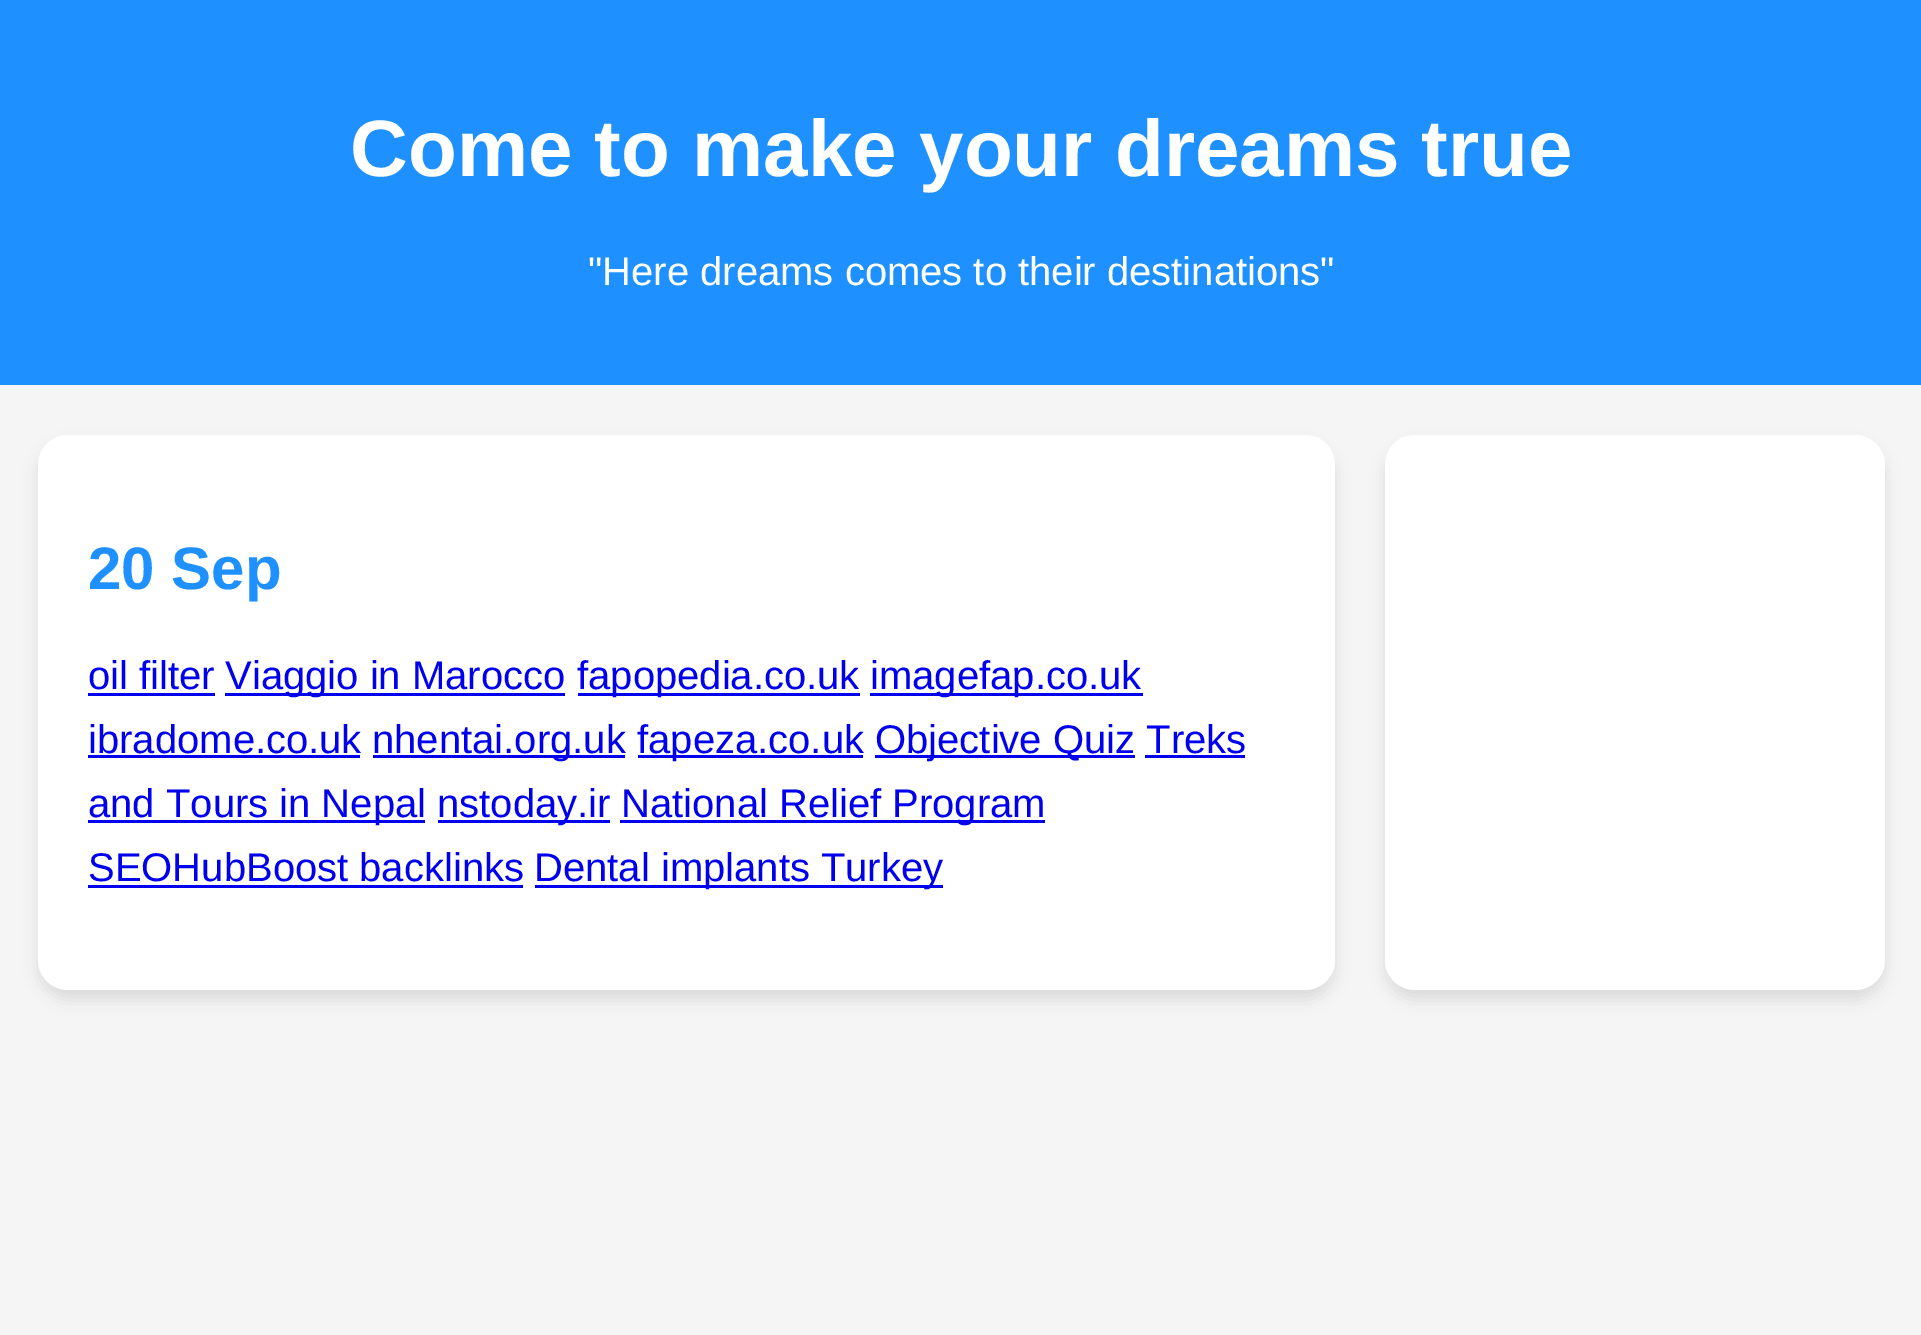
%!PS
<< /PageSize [1921 1335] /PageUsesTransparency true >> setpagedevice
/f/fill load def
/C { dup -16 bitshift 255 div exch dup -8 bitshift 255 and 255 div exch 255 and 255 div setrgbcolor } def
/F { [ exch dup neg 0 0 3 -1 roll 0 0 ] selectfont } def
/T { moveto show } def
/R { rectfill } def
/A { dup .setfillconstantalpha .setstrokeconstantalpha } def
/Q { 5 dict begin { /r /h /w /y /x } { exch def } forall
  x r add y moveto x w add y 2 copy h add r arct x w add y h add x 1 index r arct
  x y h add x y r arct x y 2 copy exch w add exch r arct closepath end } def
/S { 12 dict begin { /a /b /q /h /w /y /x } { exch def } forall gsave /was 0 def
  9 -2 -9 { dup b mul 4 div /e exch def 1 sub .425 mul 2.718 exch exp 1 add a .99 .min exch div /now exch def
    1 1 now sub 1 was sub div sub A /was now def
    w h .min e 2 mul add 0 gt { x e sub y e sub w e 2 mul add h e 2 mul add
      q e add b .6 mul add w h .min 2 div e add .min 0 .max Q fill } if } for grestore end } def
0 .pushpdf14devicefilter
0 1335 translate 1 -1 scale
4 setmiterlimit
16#F5F5F5 C
0 0 1921 1335 R
16#1E90FF C
0 0 1921 385 R
/LiberationSans-Bold 80 F
16#FFFFFF C
(Come to make your dreams true) 350 176 T
/LiberationSans-Regular 40 F
("Here dreams comes to their destinations") 588 285 T
16#000000 C
38 445 1297 555 30 7.5 .1 S
16#FFFFFF C
38 435 1297 555 30 Q f
/LiberationSans-Bold 60 F
16#1E90FF C
(20 Sep) 88 589 T
/LiberationSans-Regular 40 F
16#0000EE C
(oil filter) 88 689 T
88 693 127 3 R
225 693 340 3 R
(Viaggio in Marocco) 225 689 T
578 693 282 3 R
(fapopedia.co.uk) 577 689 T
870 693 273 3 R
(imagefap.co.uk) 870 689 T
(ibradome.co.uk) 88 753 T
88 755 272 3 R
373 755 252 3 R
(nhentai.org.uk) 372 753 T
638 755 225 3 R
(fapeza.co.uk) 637 753 T
875 755 260 3 R
(Objective Quiz Treks) 875 753 T
88 820 337 3 R
(and Tours in Nepal) 88 817 T
1145 755 100 3 R
438 820 172 3 R
(nstoday.ir) 437 817 T
620 820 425 3 R
(National Relief Program) 621 817 T
(SEOHubBoost backlinks) 88 881 T
88 885 435 3 R
535 885 408 3 R
(Dental implants Turkey) 534 881 T
16#000000 C
1385 445 500 555 30 7.5 .1 S
16#FFFFFF C
1385 435 500 555 30 Q f
.poppdf14devicefilter showpage
